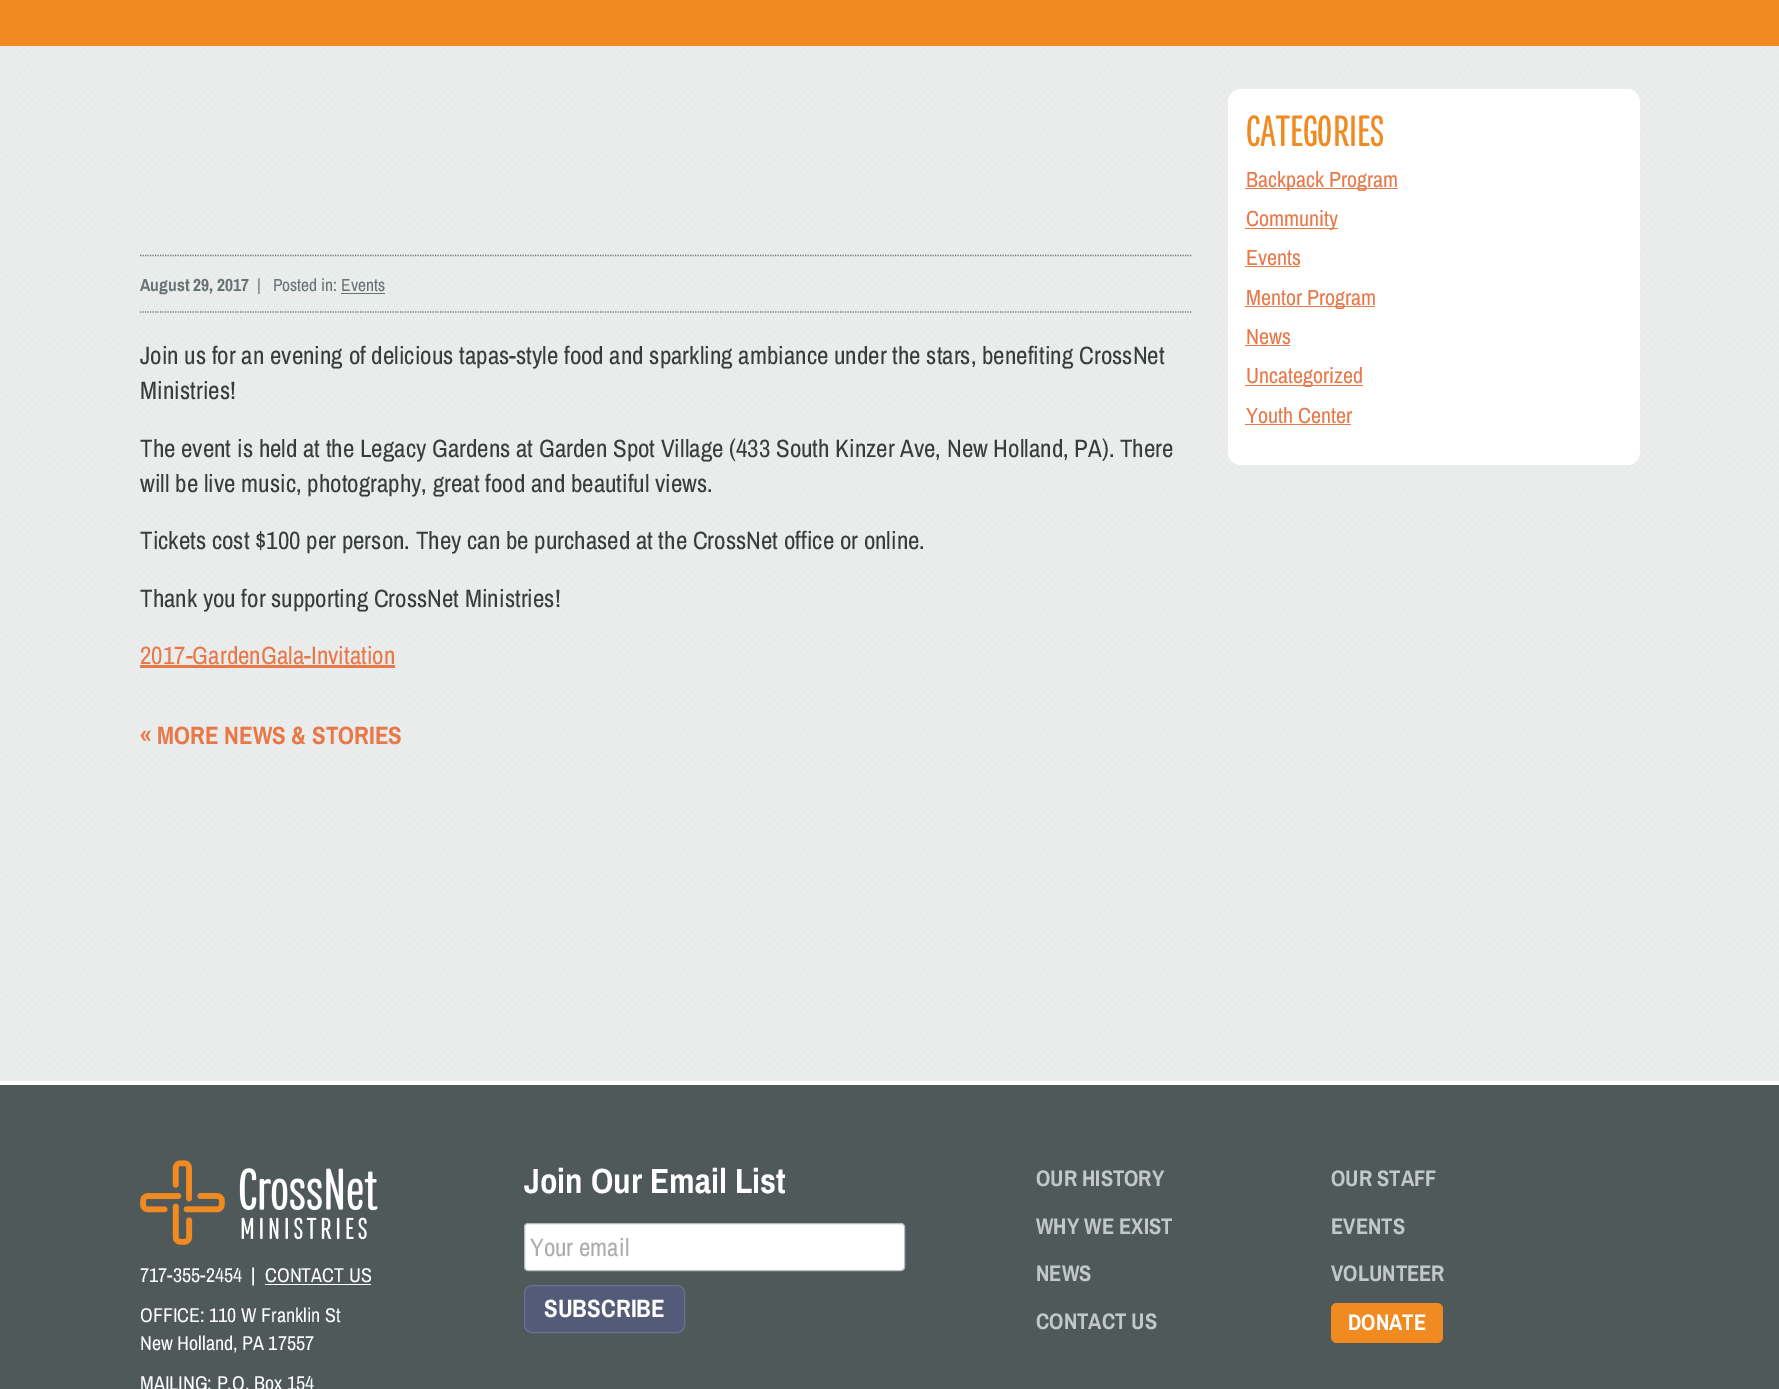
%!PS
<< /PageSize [1779 1389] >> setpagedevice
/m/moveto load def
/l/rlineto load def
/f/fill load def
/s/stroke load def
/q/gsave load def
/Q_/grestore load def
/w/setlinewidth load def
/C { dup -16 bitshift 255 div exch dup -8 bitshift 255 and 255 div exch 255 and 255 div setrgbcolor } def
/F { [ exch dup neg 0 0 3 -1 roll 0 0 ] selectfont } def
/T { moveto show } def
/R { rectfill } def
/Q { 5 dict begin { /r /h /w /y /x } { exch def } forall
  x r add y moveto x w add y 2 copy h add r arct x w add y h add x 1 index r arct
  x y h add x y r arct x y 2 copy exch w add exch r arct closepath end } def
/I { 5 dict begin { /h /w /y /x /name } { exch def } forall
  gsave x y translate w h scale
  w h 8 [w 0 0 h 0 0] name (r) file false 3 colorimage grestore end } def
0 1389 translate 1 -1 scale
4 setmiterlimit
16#505959 C
0 0 1779 1389 R
16#EEEEEE C
0 1080 1779 1 R
(1.rgb) 0 46 1779 1034 I
16#F08A21 C
0 0 1779 46 R
16#707979 C
1.2 w
[1.25 1.25] 0 setdash
140 255.5 m 1052.5 0 l s
140 312 m 1052.5 0 l s
/ArchivoNarrow-Bold 17.5 F
16#667373 C
(August 29, 2017) 140 291 T
/ArchivoNarrow-Regular 17.5 F
(|   Posted in: Events) 257 291 T
341 293 44 1 R
/ArchivoNarrow-Regular 25 F
16#363D3D C
(Join us for an evening of delicious tapas-style food and sparkling ambiance under the stars, benefiting CrossNet) 140 364 T
(Ministries!) 140 399 T
(The event is held at the Legacy Gardens at Garden Spot Village \(433 South Kinzer Ave, New Holland, PA\). There) 140 457 T
(will be live music, photography, great food and beautiful views.) 140 492 T
(Tickets cost $100 per person. They can be purchased at the CrossNet office or online.) 140 549 T
(Thank you for supporting CrossNet Ministries!) 140 607 T
16#E87848 C
(2017-GardenGala-Invitation) 140 664 T
140 665 255 3 R
/ArchivoNarrow-Bold 25 F
(« MORE NEWS & STORIES) 140 744 T
16#FFFFFF C
1228 89 412 376 13 Q f
/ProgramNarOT-Regular 47.5 F
16#F08A21 C
(CATEGORIES) 1246 146 T
16#E87848 C
1245 188 153 1 R
/ArchivoNarrow-Regular 22 F
(Backpack Program) 1246 187 T
1245 228 93 1 R
(Community) 1246 226 T
(Events) 1246 265 T
1245 266 55 1 R
1245 306 130 1 R
(Mentor Program) 1246 305 T
(News) 1246 344 T
1245 345 45 1 R
1245 385 118 1 R
(Uncategorized) 1246 383 T
(Youth Center) 1246 423 T
1245 424 106 1 R
16#FFFFFF C
0 1081 1779 4 R
(2.rgb) 140 1160 238 85 I
/ArchivoNarrow-Regular 20 F
(717-355-2454  |) 140 1282 T
(CONTACT US) 265 1282 T
265 1284 106 1 R
(OFFICE: 110 W Franklin St) 140 1322 T
(New Holland, PA 17557) 140 1350 T
(MAILING: P.O. Box 154) 140 1390 T
/ArchivoNarrow-Bold 35 F
(Join Our Email List) 524 1193 T
524.5 1223.5 380 47 3.5 Q q f Q_
16#B5BCBC C
1 w
[] 0 setdash
s
/ArchivoNarrow-Regular 25 F
16#ACACAC C
(Your email) 530 1256 T
16#535B79 C
524.5 1285.5 160 47 7.5 Q q f Q_
16#687297 C
s
/ArchivoNarrow-Bold 25 F
16#FFFFFF C
(SUBSCRIBE) 544 1317 T
/ArchivoNarrow-Bold 22.5 F
16#C2C8C8 C
(OUR HISTORY) 1036 1186 T
(OUR STAFF) 1331 1186 T
(WHY WE EXIST) 1036 1234 T
(EVENTS) 1331 1234 T
(NEWS) 1036 1281 T
(VOLUNTEER) 1331 1281 T
(CONTACT US) 1036 1329 T
16#F08A21 C
1331 1303 112 40 6 Q f
16#FFFFFF C
(DONATE) 1348 1330 T
showpage
